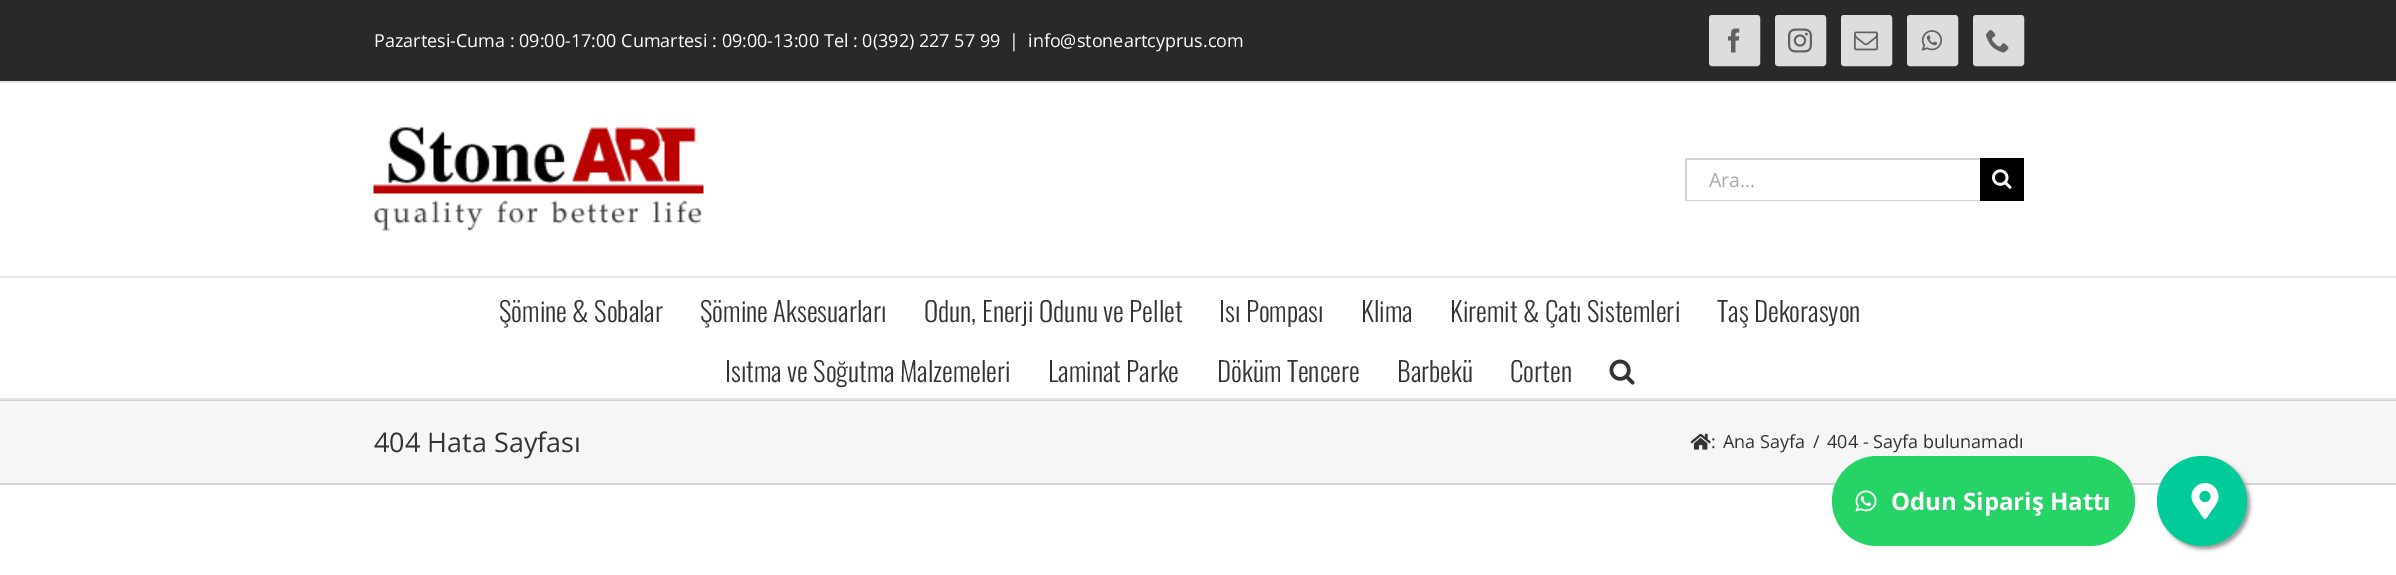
%!PS
<< /PageSize [2396 575] /PageUsesTransparency true >> setpagedevice
/f/fill load def
/s/stroke load def
/q/gsave load def
/Q_/grestore load def
/w/setlinewidth load def
/C { dup -16 bitshift 255 div exch dup -8 bitshift 255 and 255 div exch 255 and 255 div setrgbcolor } def
/F { [ exch dup neg 0 0 3 -1 roll 0 0 ] selectfont } def
/T { moveto show } def
/R { rectfill } def
/A { dup .setfillconstantalpha .setstrokeconstantalpha } def
/O { newpath 0 360 arc closepath } def
/Q { 5 dict begin { /r /h /w /y /x } { exch def } forall
  x r add y moveto x w add y 2 copy h add r arct x w add y h add x 1 index r arct
  x y h add x y r arct x y 2 copy exch w add exch r arct closepath end } def
/S { 12 dict begin { /a /b /q /h /w /y /x } { exch def } forall gsave /was 0 def
  9 -2 -9 { dup b mul 4 div /e exch def 1 sub .425 mul 2.718 exch exp 1 add a .99 .min exch div /now exch def
    1 1 now sub 1 was sub div sub A /was now def
    w h .min e 2 mul add 0 gt { x e sub y e sub w e 2 mul add h e 2 mul add
      q e add b .6 mul add w h .min 2 div e add .min 0 .max Q fill } if } for grestore end } def
/I { 5 dict begin { /h /w /y /x /name } { exch def } forall
  gsave x y translate w h scale
  w h 8 [w 0 0 h 0 0] name (r) file false 3 colorimage grestore end } def
0 .pushpdf14devicefilter
0 575 translate 1 -1 scale
4 setmiterlimit
16#FFFFFF C
0 0 2396 575 R
16#29292A C
0 0 2396 81 R
16#E5E5E5 C
0 81 2396 2 R
/OpenSans-Regular 18 F
16#FFFFFF C
(Pazartesi-Cuma : 09:00-17:00 Cumartesi : 09:00-13:00 Tel : 0\(392\) 227 57 99) 374 47 T
(|) 1009 47 T
(info@stoneartcyprus.com) 1028 47 T
16#DDDDDD C
1710 16 49 49 2 Q q f Q_
2 w
s
(1.rgb) 1728 28 12 25 I
1776 16 49 49 2 Q q f Q_
s
(2.rgb) 1788 28 24 25 I
1842 16 49 49 2 Q q f Q_
s
(3.rgb) 1854 31 24 20 I
1908 16 49 49 2 Q q f Q_
s
(4.rgb) 1921 30 22 21 I
1974 16 49 49 2 Q q f Q_
s
(5.rgb) 1986 30 23 23 I
16#E5E5E5 C
0 276 2396 2 R
(6.rgb) 373 127 331 104 I
16#D2D2D2 C
1685 158 295 2 R
1685 200 295 1 R
1685 158 2 43 R
/OpenSans-Regular 19.5 F
16#AAA9A9 C
(Ara...) 1709 187 T
16#000000 C
1980 158 44 43 R
(7.rgb) 1992 169 20 20 I
16#E5E5E5 C
0 398 2396 2 R
/Oswald-Light 27 F
16#333333 C
(Şömine & Sobalar) 499 322 T
(Şömine Aksesuarları) 700 322 T
(Odun, Enerji Odunu ve Pellet) 924 322 T
(Isı Pompası) 1219 322 T
(Klima) 1361 322 T
(Kiremit & Çatı Sistemleri) 1450 322 T
(Taş Dekorasyon) 1717 322 T
(Isıtma ve Soğutma Malzemeleri) 725 382 T
(Laminat Parke) 1048 382 T
(Döküm Tencere) 1217 382 T
(Barbekü) 1397 382 T
(Corten) 1510 382 T
(8.rgb) 1609 359 26 26 I
16#F6F6F6 C
0 401 2396 82 R
16#D2D3D4 C
0 400 2396 1 R
0 483 2396 2 R
/OpenSans-Regular 27 F
16#333333 C
(404 Hata Sayfası) 374 452 T
(9.rgb) 1690 433 21 17 I
/OpenSans-Regular 18 F
(:) 1711 448 T
(Ana Sayfa) 1723 448 T
(/) 1813 448 T
(404 - Sayfa bulunamadı) 1827 448 T
16#25D366 C
1832 456 303 90 45 Q f
(10.rgb) 1855 490 22 22 I
/OpenSans-Bold 24 F
16#FFFFFF C
(Odun Sipariş Hattı) 1891 510 T
16#999999 C
2160 459 90 90 45 2 1 S
16#00CC99 C
2202 501 45 O f
(11.rgb) 2191 483 28 36 I
.poppdf14devicefilter showpage
